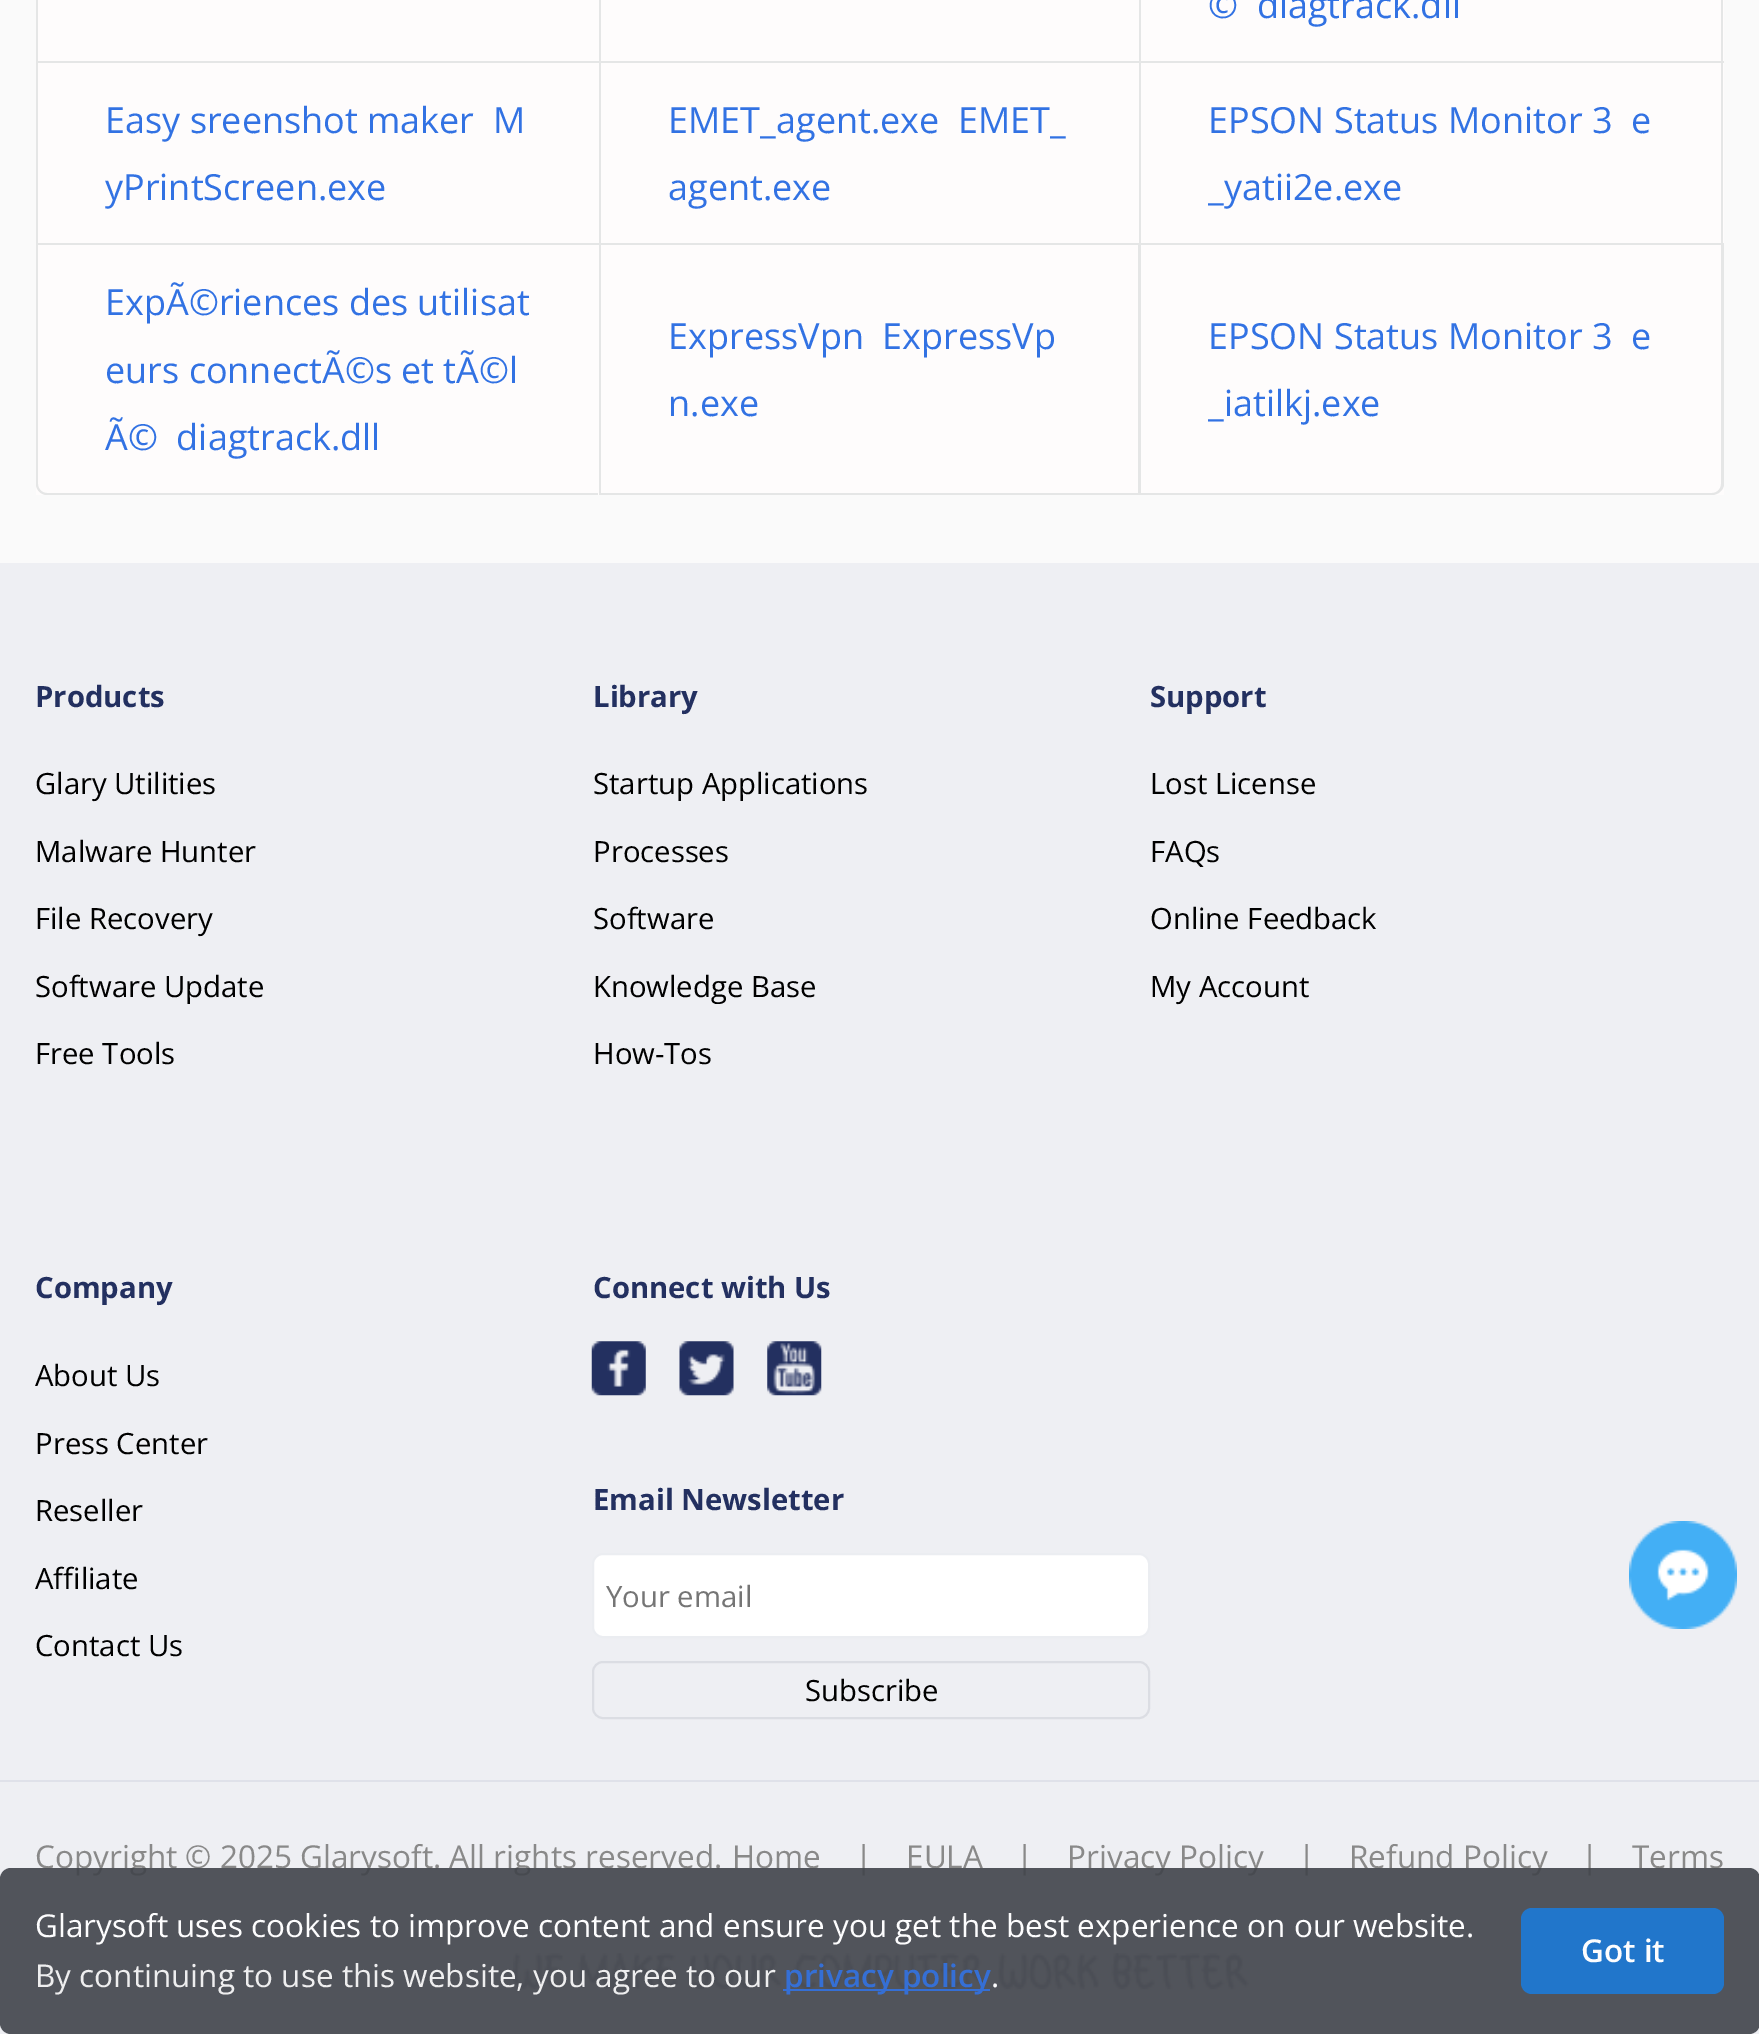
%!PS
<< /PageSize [1759 2034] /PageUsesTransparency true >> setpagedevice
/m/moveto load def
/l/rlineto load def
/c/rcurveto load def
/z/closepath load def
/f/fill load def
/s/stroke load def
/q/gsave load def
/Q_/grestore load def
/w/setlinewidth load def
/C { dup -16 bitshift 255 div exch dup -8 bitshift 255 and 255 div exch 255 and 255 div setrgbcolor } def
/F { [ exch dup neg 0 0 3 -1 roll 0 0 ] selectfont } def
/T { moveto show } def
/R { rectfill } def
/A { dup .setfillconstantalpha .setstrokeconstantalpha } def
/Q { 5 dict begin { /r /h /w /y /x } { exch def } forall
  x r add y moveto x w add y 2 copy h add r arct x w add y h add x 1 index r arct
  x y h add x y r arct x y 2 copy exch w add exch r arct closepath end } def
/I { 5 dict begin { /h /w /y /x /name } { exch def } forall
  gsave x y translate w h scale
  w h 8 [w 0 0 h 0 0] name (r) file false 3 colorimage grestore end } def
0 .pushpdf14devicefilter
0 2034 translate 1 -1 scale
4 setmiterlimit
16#FAFAFA C
0 0 1759 2034 R
16#FEFCFC C
36 0 1688 495 R
16#E5E6E6 C
36 61 1103 2 R
36 0 2 63 R
599 0 2 63 R
1721 0 2 245 R
1139 61 585 2 R
1139 0 2 63 R
/OpenSans-Regular 36 F
16#3272E3 C
(©  diagtrack.dll) 1208 18 T
16#E5E6E6 C
36 243 1688 2 R
36 63 2 182 R
16#3272E3 C
(Easy sreenshot maker  M) 105 133 T
(yPrintScreen.exe) 105 200 T
16#E5E6E6 C
599 63 2 182 R
16#3272E3 C
(EMET_agent.exe  EMET_) 668 133 T
(agent.exe) 668 200 T
16#E5E6E6 C
1139 63 2 182 R
16#3272E3 C
(EPSON Status Monitor 3  e) 1208 133 T
(_yatii2e.exe) 1208 200 T
16#E5E6E6 C
36 245 m 562 0 l 0 250 l -551 0 l -6 0 -11 -5 -11 -11 c z 38 245 m 560 0 l 0 248 l -551 0 l -5 0 -9 -4 -9 -9 c z eofill
16#3272E3 C
(ExpÃ©riences des utilisat) 105 315 T
(eurs connectÃ©s et tÃ©l) 105 383 T
(Ã©  diagtrack.dll) 105 450 T
16#E5E6E6 C
599 493 540 2 R
599 245 2 250 R
16#3272E3 C
(ExpressVpn  ExpressVp) 668 349 T
(n.exe) 668 416 T
16#E5E6E6 C
1138 245 m 586 0 l 0 239 l 0 6 -6 11 -12 11 c -574 0 l z 1141 245 m 580 0 l 0 239 l 0 5 -4 9 -9 9 c -571 0 l z eofill
16#3272E3 C
(EPSON Status Monitor 3  e) 1208 349 T
(_iatilkj.exe) 1208 416 T
16#EEEFF3 C
0 563 1759 1471 R
/OpenSans-Bold 29.25 F
16#233060 C
(Products) 35 707 T
/OpenSans-Regular 29.25 F
16#000000 C
(Glary Utilities) 35 794 T
(Malware Hunter) 35 862 T
(File Recovery) 35 929 T
(Software Update) 35 997 T
(Free Tools) 35 1064 T
/OpenSans-Bold 29.25 F
16#233060 C
(Library) 593 707 T
/OpenSans-Regular 29.25 F
16#000000 C
(Startup Applications) 593 794 T
(Processes) 593 862 T
(Software) 593 929 T
(Knowledge Base) 593 997 T
(How-Tos) 593 1064 T
/OpenSans-Bold 29.25 F
16#233060 C
(Support) 1150 707 T
/OpenSans-Regular 29.25 F
16#000000 C
(Lost License) 1150 794 T
(FAQs) 1150 862 T
(Online Feedback) 1150 929 T
(My Account) 1150 997 T
/OpenSans-Bold 29.25 F
16#233060 C
(Company) 35 1298 T
/OpenSans-Regular 29.25 F
16#000000 C
(About Us) 35 1386 T
(Press Center) 35 1454 T
(Reseller) 35 1521 T
(Affiliate) 35 1589 T
(Contact Us) 35 1656 T
/OpenSans-Bold 29.25 F
16#233060 C
(Connect with Us) 593 1298 T
(1.rgb) 591 1341 55 55 I
(2.rgb) 679 1341 55 55 I
(3.rgb) 767 1341 55 55 I
(Email Newsletter) 593 1510 T
16#FFFFFF C
593 1554 556 83 10 Q q f Q_
16#EBEDF1 C
2 w
s
/OpenSans-Regular 29.25 F
16#757575 C
(Your email) 606 1607 T
16#DBDDE3 C
593 1662 556 56 10 Q s
16#000000 C
(Subscribe) 805 1701 T
16#DFE1E9 C
0 1780 1759 2 R
/OpenSans-Regular 31.5 F
16#898989 C
(Copyright © 2025 Glarysoft. All rights reserved.) 35 1868 T
(Home) 732 1868 T
(|) 855 1868 T
(EULA) 906 1868 T
(|) 1016 1868 T
(Privacy Policy) 1067 1868 T
(|) 1298 1868 T
(Refund Policy) 1349 1868 T
(|) 1581 1868 T
(Terms) 1632 1868 T
(4.rgb) 513 1953 736 37 I
(5.rgb) 1629 1521 108 108 I
0.9 A
16#40434A C
0 1868 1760 166 11 Q f
1 A
16#FDFDFE C
(Glarysoft uses cookies to improve content and ensure you get the best experience on our website.) 35 1937 T
16#EEEEEF C
(By continuing to use this website, you agree) 35 1987 T
(to our) 686 1987 T
16#356FD5 C
783 1989 207 2 R
/OpenSans-SemiBold 31.5 F
(privacy policy) 784 1987 T
/OpenSans-Regular 31.5 F
16#FDFDFE C
(.) 991 1987 T
16#2176CB C
1521 1908 203 86 11 Q f
/OpenSans-SemiBold 31.5 F
16#FDFDFE C
(Got it) 1581 1962 T
.poppdf14devicefilter showpage
